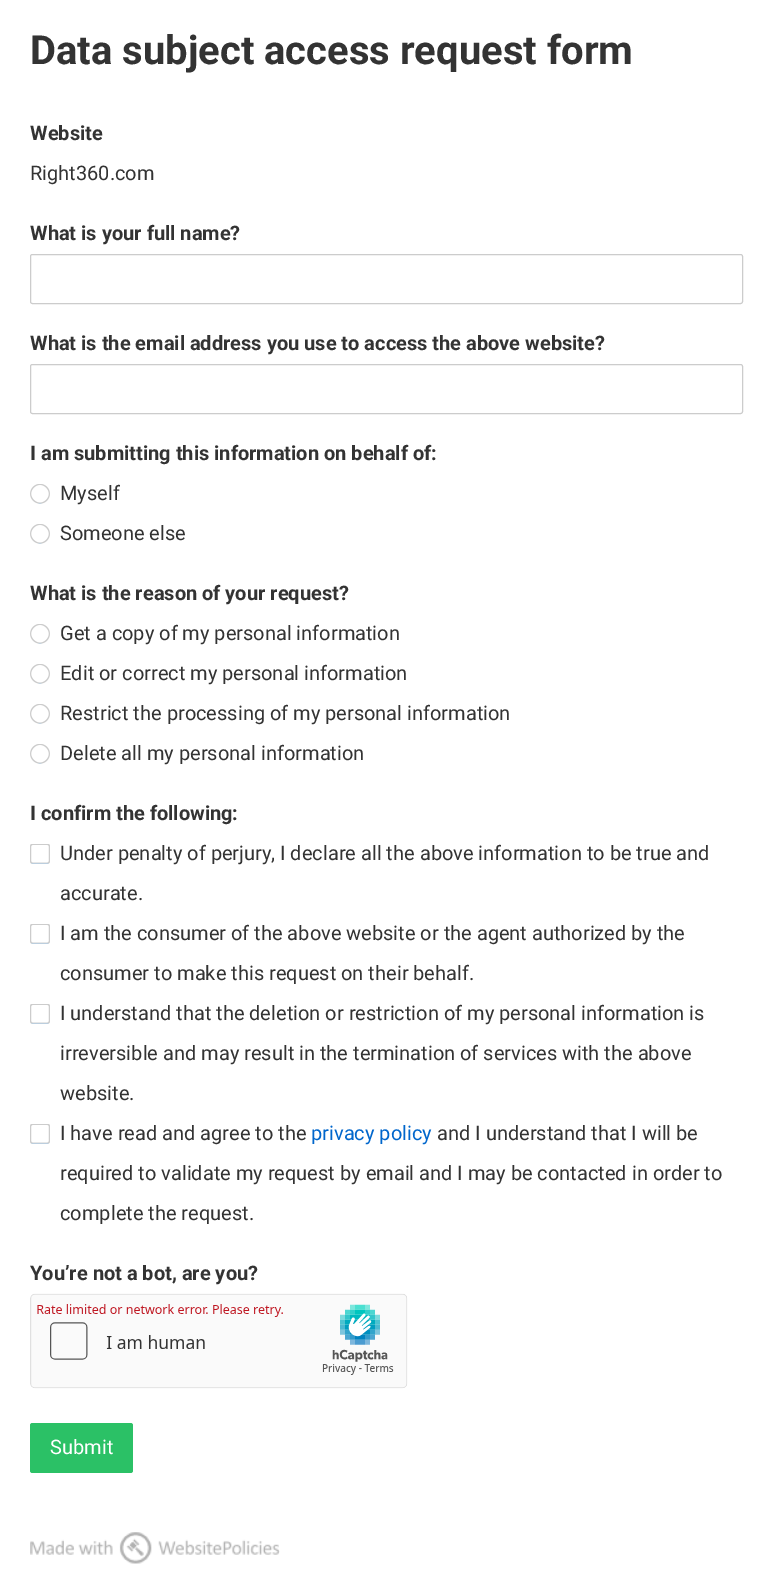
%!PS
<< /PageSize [772 1586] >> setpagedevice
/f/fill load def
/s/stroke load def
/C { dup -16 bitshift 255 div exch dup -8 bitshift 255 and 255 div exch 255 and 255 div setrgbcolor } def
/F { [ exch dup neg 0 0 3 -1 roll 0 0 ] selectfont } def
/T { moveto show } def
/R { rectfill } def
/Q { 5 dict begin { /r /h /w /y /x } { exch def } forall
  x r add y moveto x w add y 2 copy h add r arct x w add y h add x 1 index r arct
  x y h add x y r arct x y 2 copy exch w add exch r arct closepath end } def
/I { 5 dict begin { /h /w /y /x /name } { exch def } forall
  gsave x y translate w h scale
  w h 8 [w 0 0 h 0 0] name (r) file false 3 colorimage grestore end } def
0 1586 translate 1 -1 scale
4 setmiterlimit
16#FFFFFF C
0 0 772 1586 R
/Roboto-Bold 40 F
16#333333 C
(Data subject access request form) 30 64 T
/Roboto-Bold 20 F
(Website) 30 140 T
/Roboto-Regular 20 F
(Right360.com) 30 180 T
/Roboto-Bold 20 F
(What is your full name?) 30 240 T
16#CCCCCC C
30.5 254.5 712 49 2 Q s
16#333333 C
(What is the email address you use to access the above website?) 30 350 T
16#CCCCCC C
30.5 364.5 712 49 2 Q s
16#333333 C
(I am submitting this information on behalf of:) 30 460 T
(1.rgb) 30 484 20 20 I
/Roboto-Regular 20 F
(Myself) 60 500 T
(1.rgb) 30 524 20 20 I
(Someone else) 60 540 T
/Roboto-Bold 20 F
(What is the reason of your request?) 30 600 T
(1.rgb) 30 624 20 20 I
/Roboto-Regular 20 F
(Get a copy of my personal information) 60 640 T
(1.rgb) 30 664 20 20 I
(Edit or correct my personal information) 60 680 T
(1.rgb) 30 704 20 20 I
(Restrict the processing of my personal information) 60 720 T
(1.rgb) 30 744 20 20 I
(Delete all my personal information) 60 760 T
/Roboto-Bold 20 F
(I confirm the following:) 30 820 T
(2.rgb) 30 844 20 20 I
/Roboto-Regular 20 F
(Under penalty of perjury, I declare all the above information to be true and) 60 860 T
(accurate.) 60 900 T
(2.rgb) 30 924 20 20 I
(I am the consumer of the above website or the agent authorized by the) 60 940 T
(consumer to make this request on their behalf.) 60 980 T
(2.rgb) 30 1004 20 20 I
(I understand that the deletion or restriction of my personal information is) 60 1020 T
(irreversible and may result in the termination of services with the above) 60 1060 T
(website.) 60 1100 T
(2.rgb) 30 1124 20 20 I
(I have read and agree to the) 60 1140 T
16#0066CC C
(privacy policy) 311 1140 T
16#333333 C
(and I understand that I will be) 437 1140 T
(required to validate my request by email and I may be contacted in order to) 60 1180 T
(complete the request.) 60 1220 T
/Roboto-Bold 20 F
(You’re not a bot, are you?) 30 1280 T
(3.rgb) 30 1293 378 96 I
16#2BC166 C
30 1423 103 50 2.5 Q f
/Roboto-Regular 20 F
16#FFFFFF C
(Submit) 50 1454 T
(4.rgb) 30 1532 250 32 I
showpage
